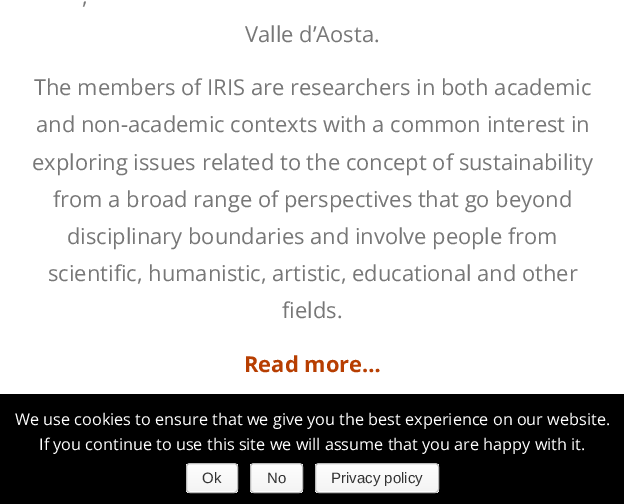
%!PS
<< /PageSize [624 504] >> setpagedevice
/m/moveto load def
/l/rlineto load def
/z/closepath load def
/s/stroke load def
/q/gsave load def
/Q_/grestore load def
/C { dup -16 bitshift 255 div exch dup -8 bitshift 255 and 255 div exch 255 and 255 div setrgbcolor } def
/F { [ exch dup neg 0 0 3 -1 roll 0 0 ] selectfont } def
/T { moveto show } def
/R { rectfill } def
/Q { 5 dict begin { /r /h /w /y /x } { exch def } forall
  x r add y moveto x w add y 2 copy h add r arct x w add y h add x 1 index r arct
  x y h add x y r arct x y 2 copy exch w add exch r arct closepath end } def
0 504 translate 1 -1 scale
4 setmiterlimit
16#FFFFFF C
0 0 624 504 R
/OpenSans-Regular 21.9 F
16#777777 C
(,) 82 4 T
(Valle d’Aosta.) 245 42 T
(The members of IRIS are researchers in both academic) 34 95 T
(and non-academic contexts with a common interest in) 36 132 T
(exploring issues related to the concept of sustainability) 32 170 T
(from a broad range of perspectives that go beyond) 53 207 T
(disciplinary boundaries and involve people from) 67 244 T
(scientific, humanistic, artistic, educational and other) 48 281 T
(fields.) 282 318 T
/OpenSans-Bold 21.9 F
16#B73E01 C
(Read more…) 244 372 T
16#000000 C
0 394 624 110 R
/OpenSans-Regular 16.25 F
16#FFFFFF C
(We use cookies to ensure that we give you the best experience on our website.) 15 425 T
(If you continue to use this site we will assume that you are happy with it.) 39 450 T
q
186 463 52 30 4 Q clip newpath
q 186 464 m 52 0 l 0 27 l -52 0 l z clip newpath
<< /ShadingType 2 /ColorSpace /DeviceRGB /Coords [212 464 212 491] /Extend [true true] /Function << /FunctionType 2 /Domain [0 1] /C0 [.996 .996 .996] /C1 [.957 .957 .957] /N 1 >> >> shfill Q_
q 186 491 m 52 0 l 0 2 l -52 0 l z clip newpath
<< /ShadingType 2 /ColorSpace /DeviceRGB /Coords [212 491 212 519] /Extend [true true] /Function << /FunctionType 2 /Domain [0 1] /C0 [.996 .996 .996] /C1 [.957 .957 .957] /N 1 >> >> shfill Q_
Q_
16#BBBBBB C
186.5 463.5 51 29 3.5 Q s
/LiberationSans-Regular 15 F
16#333333 C
(Ok) 202 483 T
q
250 463 53 30 4 Q clip newpath
q 250 464 m 53 0 l 0 27 l -53 0 l z clip newpath
<< /ShadingType 2 /ColorSpace /DeviceRGB /Coords [276 464 276 491] /Extend [true true] /Function << /FunctionType 2 /Domain [0 1] /C0 [.996 .996 .996] /C1 [.957 .957 .957] /N 1 >> >> shfill Q_
q 250 491 m 53 0 l 0 2 l -53 0 l z clip newpath
<< /ShadingType 2 /ColorSpace /DeviceRGB /Coords [276 491 276 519] /Extend [true true] /Function << /FunctionType 2 /Domain [0 1] /C0 [.996 .996 .996] /C1 [.957 .957 .957] /N 1 >> >> shfill Q_
Q_
16#BBBBBB C
250.5 463.5 52 29 3.5 Q s
16#333333 C
(No) 267 483 T
q
315 463 124 30 4 Q clip newpath
q 315 464 m 124 0 l 0 27 l -124 0 l z clip newpath
<< /ShadingType 2 /ColorSpace /DeviceRGB /Coords [377 464 377 491] /Extend [true true] /Function << /FunctionType 2 /Domain [0 1] /C0 [.996 .996 .996] /C1 [.957 .957 .957] /N 1 >> >> shfill Q_
q 315 491 m 124 0 l 0 2 l -124 0 l z clip newpath
<< /ShadingType 2 /ColorSpace /DeviceRGB /Coords [377 491 377 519] /Extend [true true] /Function << /FunctionType 2 /Domain [0 1] /C0 [.996 .996 .996] /C1 [.957 .957 .957] /N 1 >> >> shfill Q_
Q_
16#BBBBBB C
315.5 463.5 123 29 3.5 Q s
16#333333 C
(Privacy policy) 331 483 T
showpage
